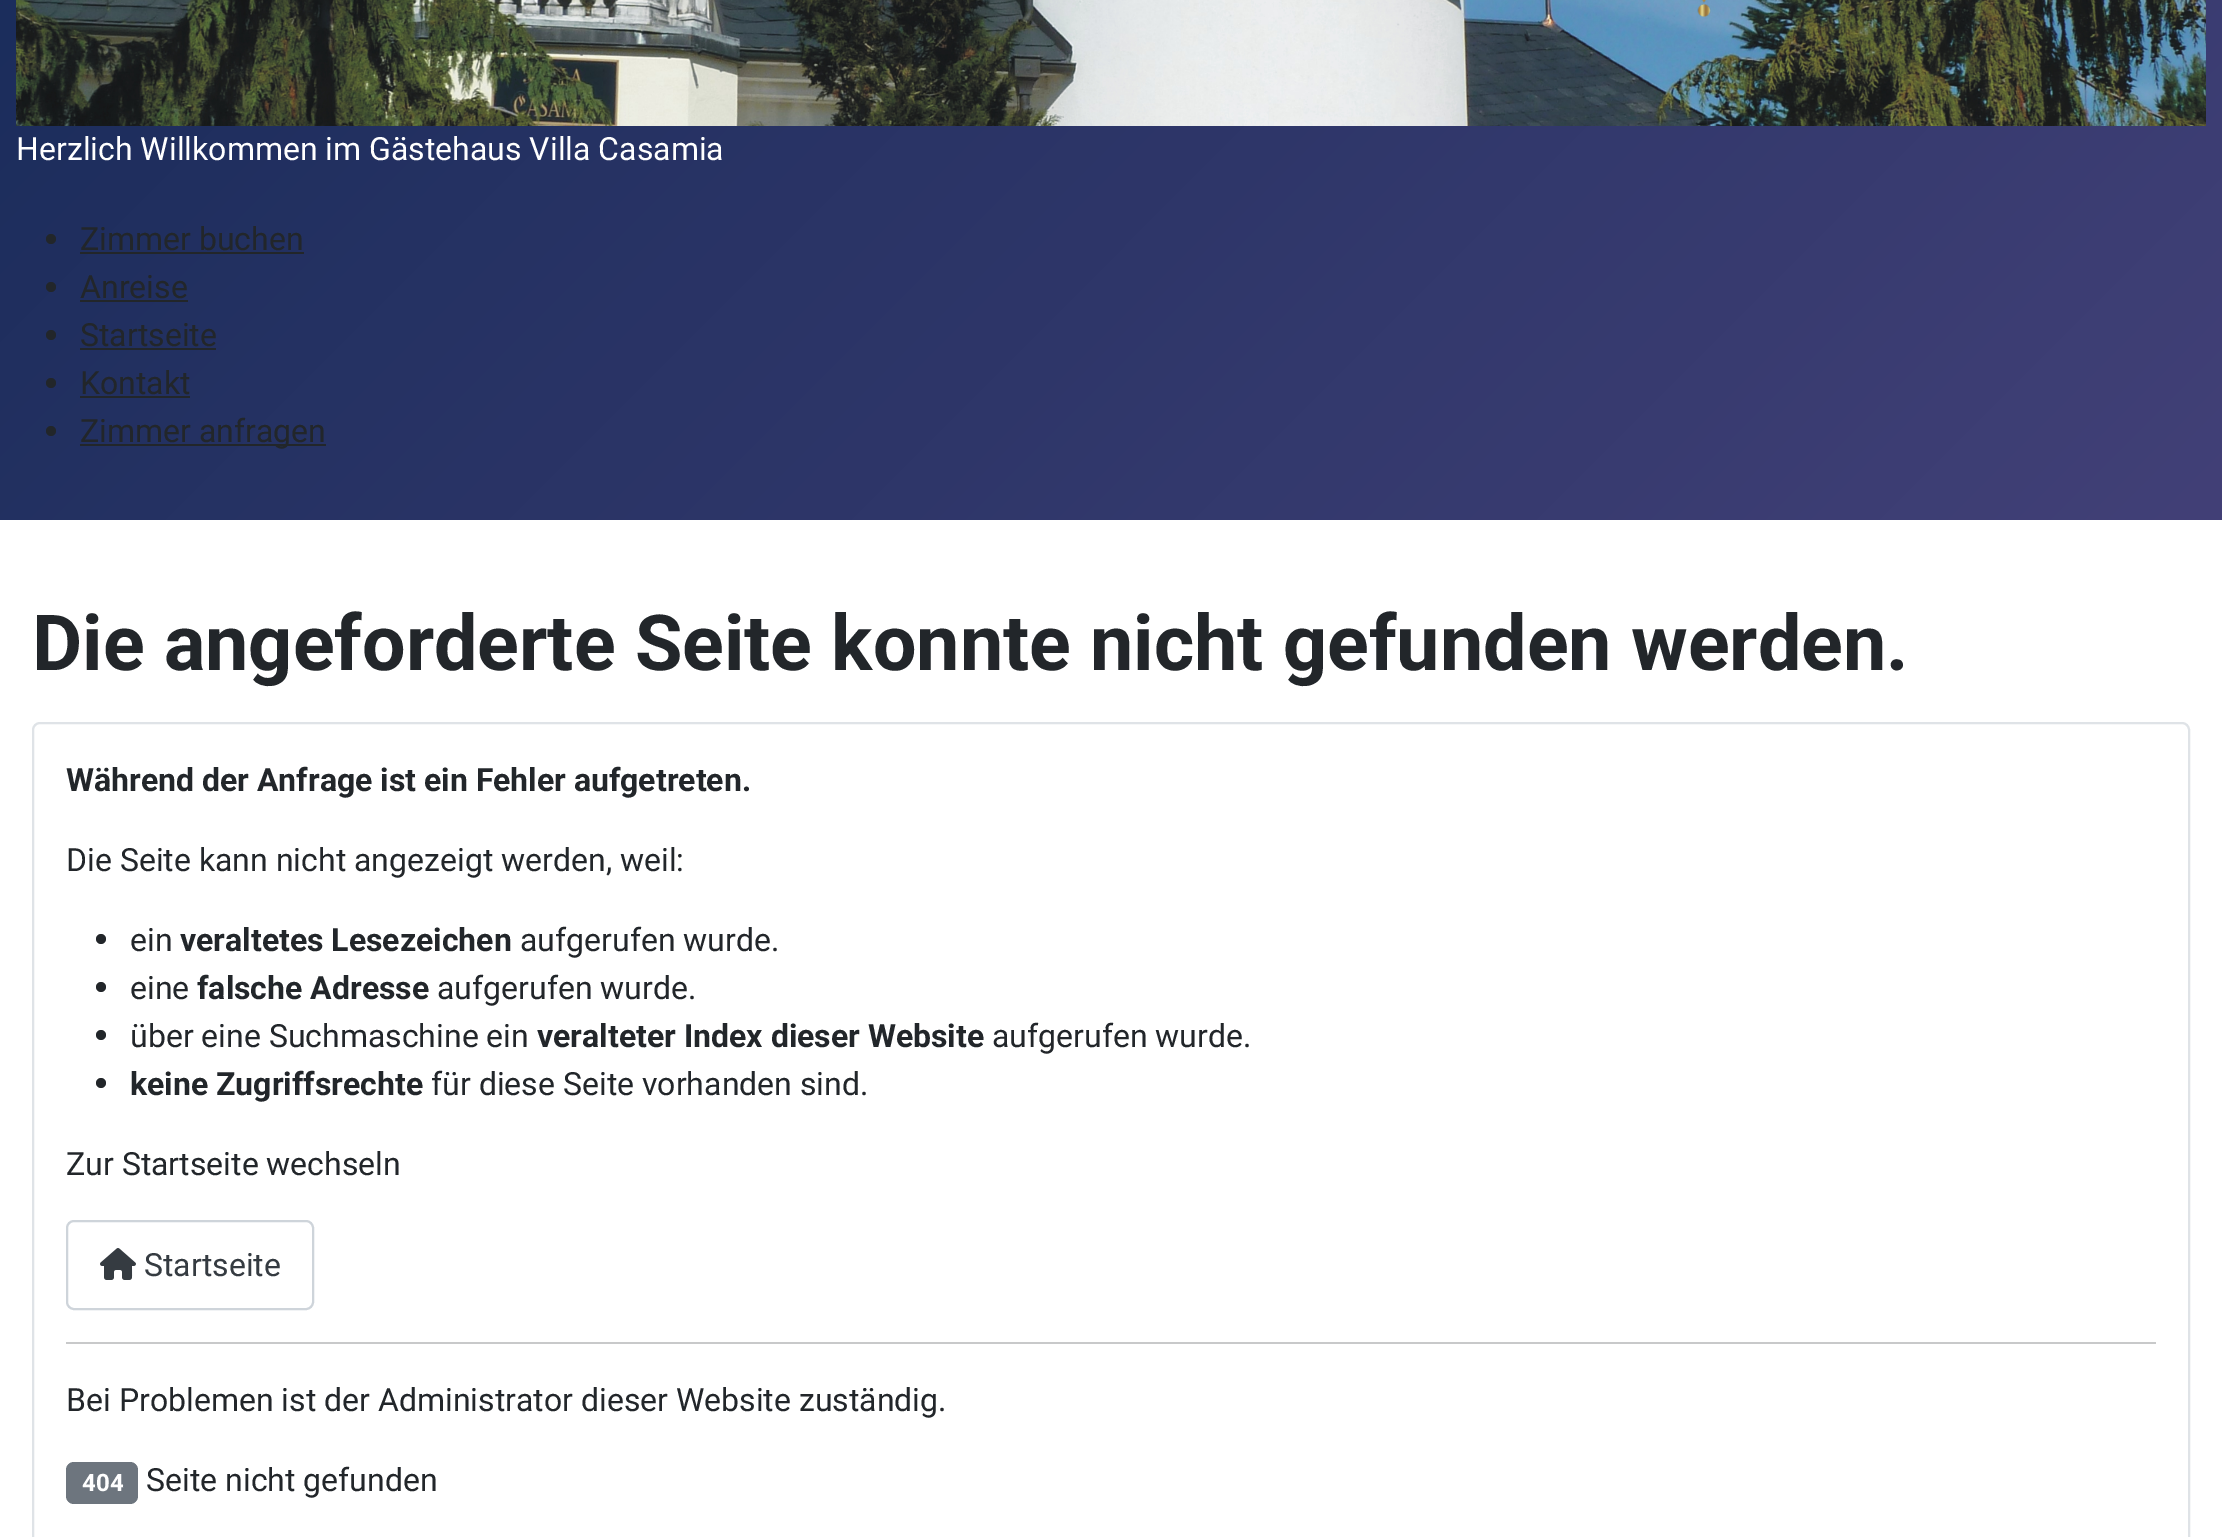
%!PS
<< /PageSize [2222 1537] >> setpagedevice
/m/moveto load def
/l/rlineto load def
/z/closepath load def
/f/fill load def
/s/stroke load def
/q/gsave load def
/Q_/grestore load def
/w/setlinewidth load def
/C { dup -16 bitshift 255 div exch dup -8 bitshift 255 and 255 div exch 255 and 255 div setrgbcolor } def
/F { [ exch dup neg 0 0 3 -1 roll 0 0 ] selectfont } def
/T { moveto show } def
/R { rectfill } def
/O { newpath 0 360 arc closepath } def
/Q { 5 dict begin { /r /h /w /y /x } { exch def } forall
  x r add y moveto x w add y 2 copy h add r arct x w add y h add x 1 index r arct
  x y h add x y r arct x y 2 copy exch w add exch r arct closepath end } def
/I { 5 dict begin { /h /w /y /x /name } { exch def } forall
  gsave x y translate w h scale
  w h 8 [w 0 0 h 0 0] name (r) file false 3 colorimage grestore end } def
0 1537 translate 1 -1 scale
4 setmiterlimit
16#FFFFFF C
0 0 2222 1537 R
q 0 0 m 2222 0 l 0 520 l -2222 0 l z clip newpath
<< /ShadingType 2 /ColorSpace /DeviceRGB /Coords [254 -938 1968 775] /Extend [true true] /Function << /FunctionType 2 /Domain [0 1] /C0 [.067 .157 .333] /C1 [.259 .251 .467] /N 1 >> >> shfill Q_
(1.rgb) 16 0 2190 126 I
/Roboto-Regular 32 F
(Herzlich Willkommen im Gästehaus Villa Casamia) 16 160 T
16#22262A C
51 239 5 O f
(Zimmer buchen) 80 250 T
80 252 224 2 R
51 287 5 O f
(Anreise) 80 298 T
80 300 108 2 R
51 335 5 O f
(Startseite) 80 346 T
80 348 136 2 R
51 383 5 O f
(Kontakt) 80 394 T
80 396 110 2 R
51 431 5 O f
80 444 246 2 R
(Zimmer anfragen) 80 442 T
/Roboto-Bold 77.3 F
(Die angeforderte Seite konnte nicht gefunden werden.) 32 670 T
16#DFE3E7 C
2 w
33 723 2156 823 7 Q s
/Roboto-Bold 32 F
16#22262A C
(Während der Anfrage ist ein Fehler aufgetreten.) 66 791 T
/Roboto-Regular 32 F
(Die Seite kann nicht angezeigt werden, weil:) 66 871 T
101 939 5 O f
(ein) 130 951 T
/Roboto-Bold 32 F
(veraltetes Lesezeichen) 180 951 T
/Roboto-Regular 32 F
(aufgerufen wurde.) 520 951 T
101 987 5 O f
(eine) 130 999 T
/Roboto-Bold 32 F
(falsche Adresse) 197 999 T
/Roboto-Regular 32 F
(aufgerufen wurde.) 437 999 T
101 1035 5 O f
(über eine Suchmaschine ein) 130 1047 T
/Roboto-Bold 32 F
(veralteter Index dieser Website) 537 1047 T
/Roboto-Regular 32 F
(aufgerufen wurde.) 992 1047 T
101 1083 5 O f
/Roboto-Bold 32 F
(keine Zugriffsrechte) 130 1095 T
/Roboto-Regular 32 F
(für diese Seite vorhanden sind.) 431 1095 T
(Zur Startseite wechseln) 66 1175 T
16#CED4DA C
67 1221 246 88 7 Q s
(2.rgb) 100 1248 36 32 I
16#353B41 C
(Startseite) 144 1276 T
16#C8C9CA C
66 1342 2090 2 R
16#22262A C
(Bei Problemen ist der Administrator dieser Website zuständig.) 66 1411 T
16#6D757E C
66 1462 72 42 8 Q f
/Roboto-Bold 24 F
16#FFFFFF C
(404) 82 1491 T
/Roboto-Regular 32 F
16#22262A C
(Seite nicht gefunden) 146 1491 T
showpage
